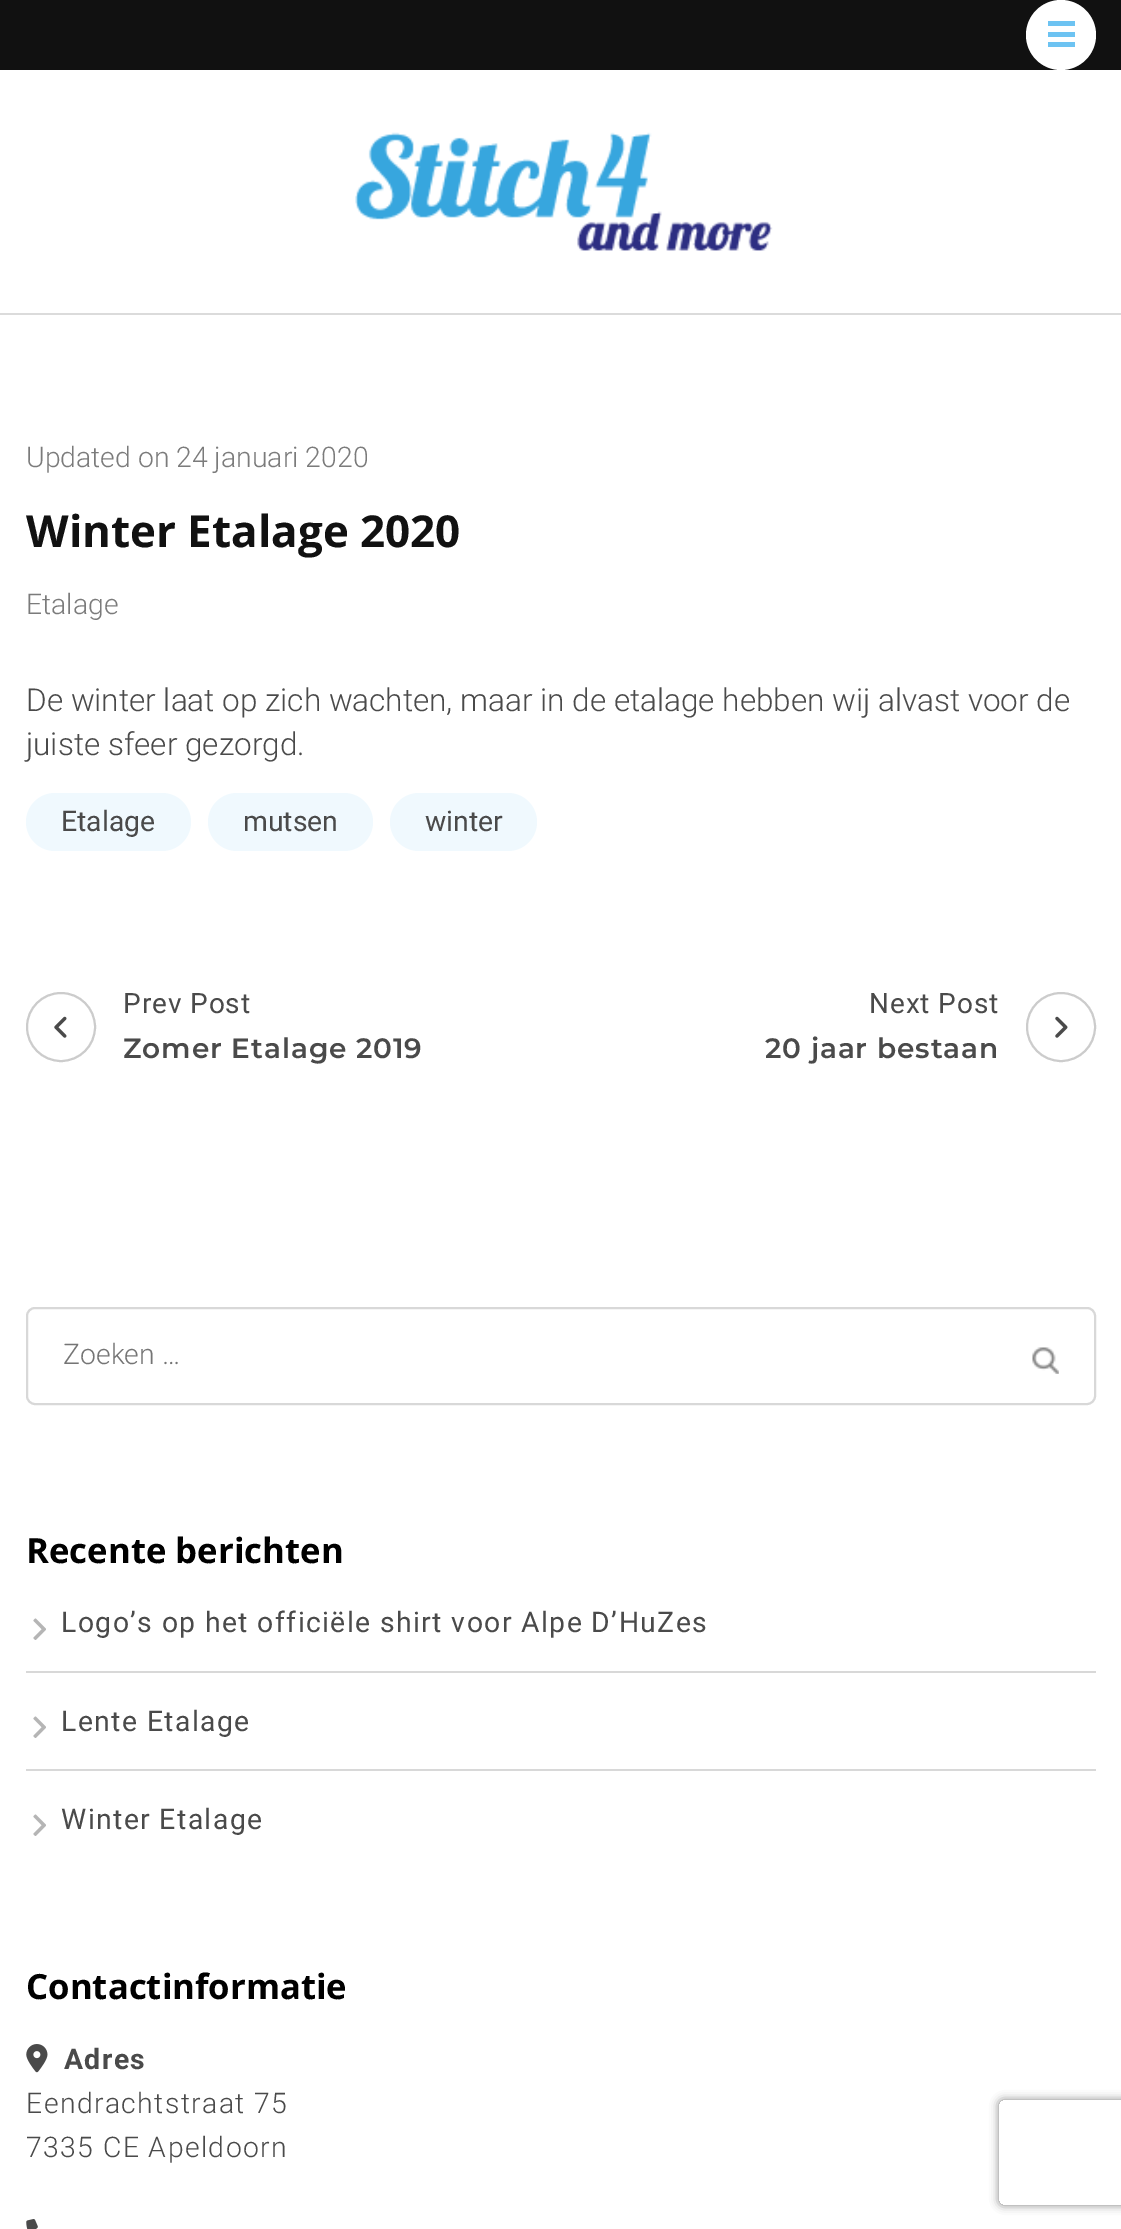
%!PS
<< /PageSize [1121 2229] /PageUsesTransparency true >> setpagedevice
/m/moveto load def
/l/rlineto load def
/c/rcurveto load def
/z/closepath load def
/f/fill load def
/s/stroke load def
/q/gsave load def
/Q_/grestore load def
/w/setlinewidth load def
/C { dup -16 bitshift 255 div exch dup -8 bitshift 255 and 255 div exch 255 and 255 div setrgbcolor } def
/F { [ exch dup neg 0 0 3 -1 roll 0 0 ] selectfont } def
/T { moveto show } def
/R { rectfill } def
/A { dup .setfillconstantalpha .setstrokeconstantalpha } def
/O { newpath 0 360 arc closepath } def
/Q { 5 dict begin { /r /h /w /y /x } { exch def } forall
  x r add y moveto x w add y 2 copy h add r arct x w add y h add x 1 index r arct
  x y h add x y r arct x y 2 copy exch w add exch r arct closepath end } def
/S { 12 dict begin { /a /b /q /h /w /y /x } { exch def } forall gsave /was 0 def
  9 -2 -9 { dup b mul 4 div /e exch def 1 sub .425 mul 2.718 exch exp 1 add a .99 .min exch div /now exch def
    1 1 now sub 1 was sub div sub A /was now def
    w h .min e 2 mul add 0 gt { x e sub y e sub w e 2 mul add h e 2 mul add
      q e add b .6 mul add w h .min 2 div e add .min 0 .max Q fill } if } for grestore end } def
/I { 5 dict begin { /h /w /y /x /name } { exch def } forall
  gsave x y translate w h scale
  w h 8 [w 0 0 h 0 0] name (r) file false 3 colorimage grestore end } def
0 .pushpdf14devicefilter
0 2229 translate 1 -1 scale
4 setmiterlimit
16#FFFFFF C
0 0 1121 2229 R
16#111111 C
0 0 1121 70 R
16#FFFFFF C
1061 35 35 O f
16#6DC3F2 C
1048 21 27 5 R
1048 32 27 5 R
1048 42 27 5 R
16#DBDBDB C
0 313 1121 2 R
(1.rgb) 355 132 418 119 I
/Roboto-Light 28.35 F
16#7B7B7B C
(Updated on 24 januari 2020) 26 467 T
/OpenSans-Bold 44 F
16#111111 C
(Winter Etalage 2020) 26 547 T
/Roboto-Light 28.35 F
16#7B7B7B C
(Etalage) 26 614 T
/Roboto-Light 31.5 F
16#4A4A4A C
(De winter laat op zich wachten, maar in de etalage hebben wij alvast voor de) 26 711 T
(juiste sfeer gezorgd.) 26 755 T
16#F0F9FE C
26 793 165 58 29 Q f
/Roboto-Regular 28.35 F
16#4A4A4A C
(Etalage) 61 831 T
16#F0F9FE C
208 793 165 58 29 Q f
16#4A4A4A C
(mutsen) 243 831 T
16#F0F9FE C
390 793 147 58 29 Q f
16#4A4A4A C
(winter) 425 831 T
16#CCCCCC C
2 w
61 1027 34 O s
(2.rgb) 54 1016 13 22 I
/Roboto-Regular 28 F
16#4A4A4A C
123 1013 m .9 0 (Prev Post) ashow
/Montserrat-SemiBold 28 F
123 1058 m .9 0 (Zomer Etalage 2019) ashow
/Roboto-Regular 28 F
869 1013 m .9 0 (Next Post) ashow
16#CCCCCC C
1061 1027 34 O s
(3.rgb) 1055 1016 13 22 I
/Montserrat-SemiBold 28 F
16#4A4A4A C
765 1058 m .9 0 (20 jaar bestaan) ashow
16#D8D8D8 C
27 1308 1068 96 8 Q s
/Roboto-Light 28.35 F
16#757575 C
(Zoeken …) 63 1364 T
(4.rgb) 1032 1347 27 27 I
/OpenSans-Bold 34.75 F
16#000000 C
(Recente berichten) 26 1563 T
16#D8D8D8 C
26 1671 1070 2 R
(5.rgb) 33 1618 13 22 I
/Roboto-Regular 28.35 F
16#4A4A4A C
61 1632 m 1.4 0 (Logo’s op het officiële shirt voor Alpe D’HuZes) ashow
16#D8D8D8 C
26 1769 1070 2 R
(5.rgb) 33 1716 13 22 I
16#4A4A4A C
61 1731 m 1.4 0 (Lente Etalage) ashow
(5.rgb) 33 1814 13 22 I
61 1829 m 1.4 0 (Winter Etalage) ashow
/OpenSans-Bold 34.75 F
16#000000 C
(Contactinformatie) 26 1999 T
(6.rgb) 26 2044 22 29 I
/Roboto-Bold 28.35 F
16#4A4A4A C
64 2069 m 1.4 0 (Adres) ashow
/Roboto-Light 28.35 F
26 2113 m 1.4 0 (Eendrachtstraat 75) ashow
26 2157 m 1.4 0 (7335 CE Apeldoorn) ashow
(7.rgb) 26 2219 12 10 I
q
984 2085 m 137 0 l 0 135 l -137 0 l z 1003 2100 m 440 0 l 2 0 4 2 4 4 c 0 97 l 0 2 -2 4 -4 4 c -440 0 l -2 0 -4 -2 -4 -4 c 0 -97 l 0 -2 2 -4 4 -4 c z eoclip newpath
16#808080 C
999 2100 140 105 4 4.5 1 S
Q_
.poppdf14devicefilter showpage
